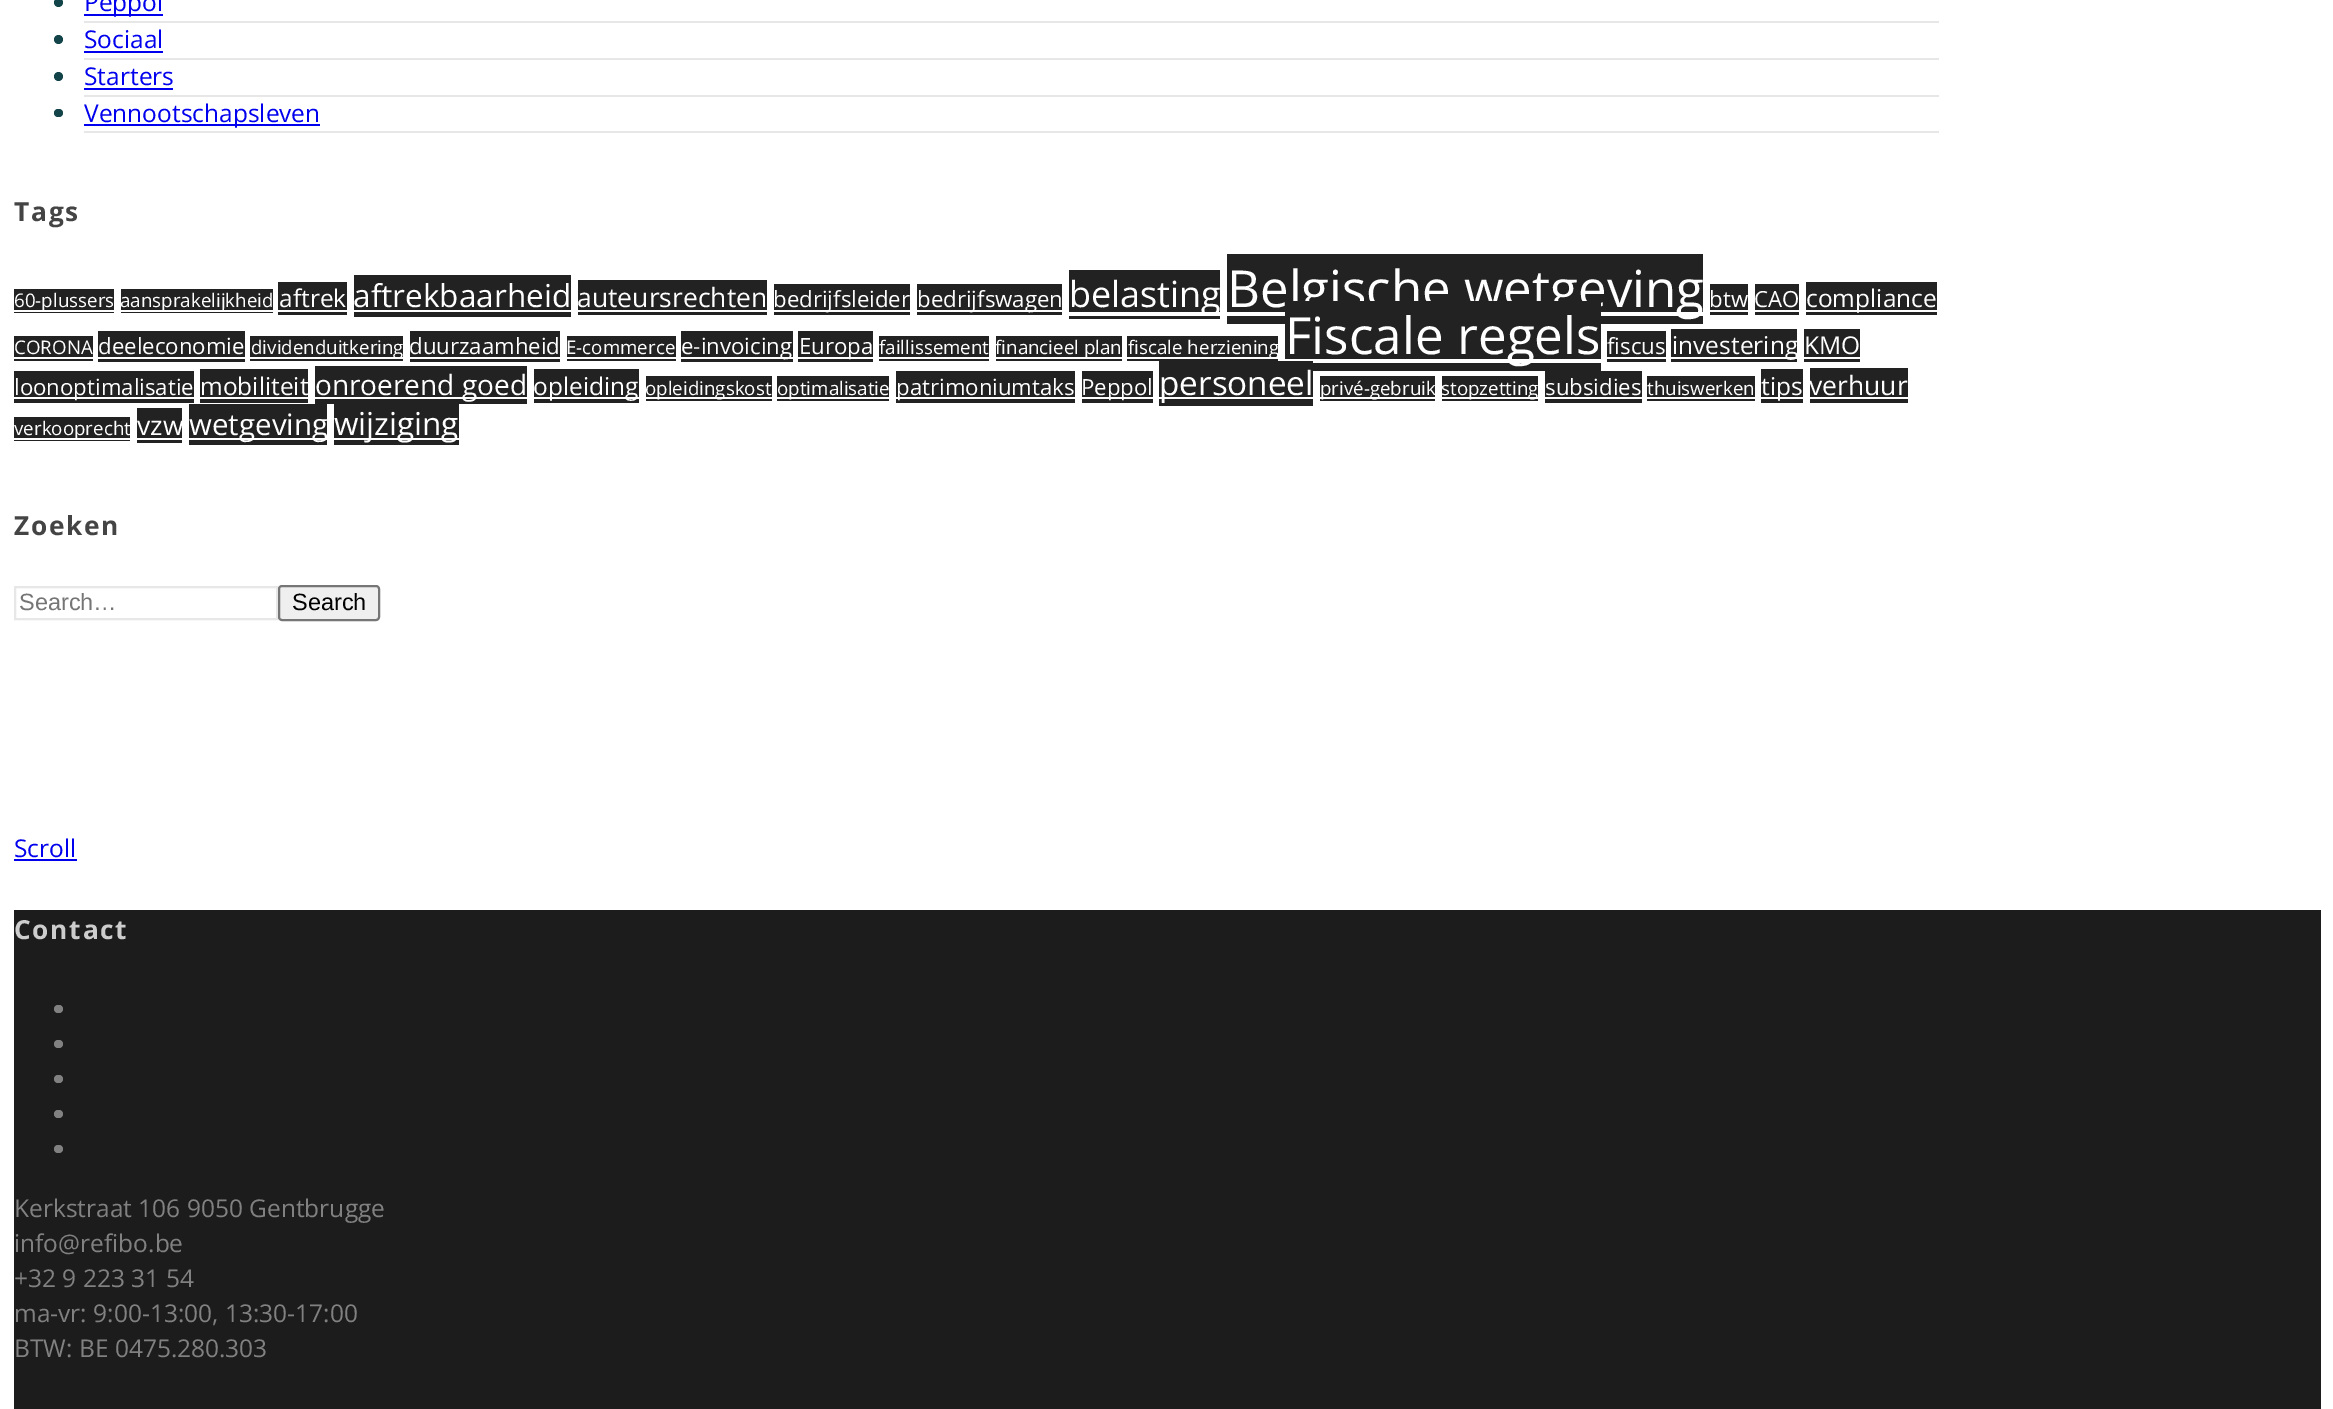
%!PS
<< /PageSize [2333 1409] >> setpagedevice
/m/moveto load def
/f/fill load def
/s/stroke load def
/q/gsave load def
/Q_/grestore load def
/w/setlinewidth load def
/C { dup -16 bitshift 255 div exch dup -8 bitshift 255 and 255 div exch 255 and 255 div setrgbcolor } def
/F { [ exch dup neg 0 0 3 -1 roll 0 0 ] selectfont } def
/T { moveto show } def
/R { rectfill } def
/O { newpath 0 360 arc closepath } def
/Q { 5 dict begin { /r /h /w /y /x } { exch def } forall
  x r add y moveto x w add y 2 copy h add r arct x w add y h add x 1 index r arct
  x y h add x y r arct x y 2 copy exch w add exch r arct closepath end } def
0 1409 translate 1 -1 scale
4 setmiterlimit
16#FFFFFF C
0 0 2333 1409 R
16#E7E7E7 C
84 21 1855 2 R
16#124449 C
58.5 2.5 4.5 O f
16#0000EE C
84 14 79 2 R
/OpenSans-Regular 24.5 F
(Peppol) 84 11 T
16#E7E7E7 C
84 58 1855 2 R
16#124449 C
58.5 39.5 4.5 O f
16#0000EE C
(Sociaal) 84 48 T
84 51 79 2 R
16#E7E7E7 C
84 95 1855 2 R
16#124449 C
58.5 76.5 4.5 O f
16#0000EE C
(Starters) 84 85 T
84 88 89 2 R
16#E7E7E7 C
84 131 1855 2 R
16#124449 C
54 109 9 8 4 Q f
16#0000EE C
84 124 236 2 R
(Vennootschapsleven) 84 122 T
/OpenSans-Bold 26.25 F
16#444444 C
14 221 m 1.75 0 (Tags) ashow
16#222222 C
14 289 100 24 R
16#FFFFFF C
14 310 100 2 R
/OpenSans-Regular 18.75 F
(60-plussers) 14 307 T
16#222222 C
121 289 152 24 R
16#FFFFFF C
121 310 152 2 R
(aansprakelijkheid) 120 307 T
16#222222 C
278 282 69 33 R
/OpenSans-Regular 24.5 F
16#FFFFFF C
(aftrek) 279 307 T
278 310 69 2 R
16#222222 C
354 275 217 42 R
/OpenSans-Regular 31.5 F
16#FFFFFF C
(aftrekbaarheid) 353 307 T
354 310 217 2 R
16#222222 C
578 280 189 35 R
/OpenSans-Regular 26.5 F
16#FFFFFF C
(auteursrechten) 577 307 T
578 310 189 2 R
16#222222 C
774 284 136 31 R
16#FFFFFF C
774 310 136 2 R
/OpenSans-Regular 22.25 F
(bedrijfsleider) 773 307 T
16#222222 C
917 284 145 31 R
16#FFFFFF C
917 310 145 2 R
(bedrijfswagen) 917 307 T
16#222222 C
1069 270 151 49 R
16#FFFFFF C
1069 312 151 4 R
/OpenSans-Regular 36 F
(belasting) 1069 307 T
16#222222 C
1227 254 476 70 R
16#FFFFFF C
1227 312 476 4 R
/OpenSans-Regular 51 F
(Belgische wetgeving) 1227 307 T
16#222222 C
1710 284 38 31 R
/OpenSans-Regular 22.25 F
16#FFFFFF C
(btw) 1709 307 T
1710 310 38 2 R
16#222222 C
1755 284 44 31 R
16#FFFFFF C
(CAO) 1754 307 T
1755 310 44 2 R
16#222222 C
1806 282 131 33 R
16#FFFFFF C
1806 310 131 2 R
/OpenSans-Regular 24.5 F
(compliance) 1806 307 T
16#222222 C
14 336 79 25 R
/OpenSans-Regular 18.75 F
16#FFFFFF C
(CORONA) 14 354 T
14 357 79 2 R
16#222222 C
98 331 147 31 R
/OpenSans-Regular 22.25 F
16#FFFFFF C
(deeleconomie) 98 354 T
98 357 147 2 R
16#222222 C
250 336 153 25 R
16#FFFFFF C
250 357 153 2 R
/OpenSans-Regular 18.75 F
(dividenduitkering) 251 354 T
16#222222 C
410 331 150 31 R
/OpenSans-Regular 22.25 F
16#FFFFFF C
(duurzaamheid) 409 354 T
410 357 150 2 R
16#222222 C
567 336 109 25 R
/OpenSans-Regular 18.75 F
16#FFFFFF C
(E-commerce) 566 354 T
567 357 109 2 R
16#222222 C
681 331 112 31 R
16#FFFFFF C
681 357 112 2 R
/OpenSans-Regular 22.25 F
(e-invoicing) 681 354 T
16#222222 C
798 331 75 31 R
16#FFFFFF C
798 357 75 2 R
(Europa) 799 354 T
16#222222 C
879 336 110 25 R
/OpenSans-Regular 18.75 F
16#FFFFFF C
(faillissement) 879 354 T
879 357 110 2 R
16#222222 C
996 336 126 25 R
16#FFFFFF C
996 357 126 2 R
(financieel plan) 995 354 T
16#222222 C
1127 336 151 25 R
16#FFFFFF C
1127 357 151 2 R
(fiscale herziening) 1128 354 T
16#222222 C
1285 301 316 70 R
16#FFFFFF C
1285 359 316 4 R
/OpenSans-Regular 51.25 F
(Fiscale regels) 1285 354 T
16#222222 C
1607 331 59 31 R
/OpenSans-Regular 22.25 F
16#FFFFFF C
(fiscus) 1607 354 T
1607 357 59 2 R
16#222222 C
1671 329 126 33 R
16#FFFFFF C
1671 357 126 2 R
/OpenSans-Regular 24.5 F
(investering) 1672 354 T
16#222222 C
1804 329 56 33 R
16#FFFFFF C
(KMO) 1804 354 T
1804 357 56 2 R
16#222222 C
14 371 180 32 R
16#FFFFFF C
14 397 180 2 R
/OpenSans-Regular 22.25 F
(loonoptimalisatie) 14 395 T
16#222222 C
200 369 108 34 R
/OpenSans-Regular 24.5 F
16#FFFFFF C
(mobiliteit) 200 395 T
200 397 108 2 R
16#222222 C
315 366 212 38 R
16#FFFFFF C
315 397 212 2 R
/OpenSans-Regular 28 F
(onroerend goed) 315 395 T
16#222222 C
534 369 105 34 R
16#FFFFFF C
534 397 105 2 R
/OpenSans-Regular 24.5 F
(opleiding) 533 395 T
16#222222 C
646 376 126 25 R
16#FFFFFF C
646 397 126 2 R
/OpenSans-Regular 18.75 F
(opleidingskost) 645 395 T
16#222222 C
777 376 112 25 R
16#FFFFFF C
777 397 112 2 R
(optimalisatie) 777 395 T
16#222222 C
896 371 179 32 R
16#FFFFFF C
896 397 179 2 R
/OpenSans-Regular 22.25 F
(patrimoniumtaks) 896 395 T
16#222222 C
1082 371 71 32 R
16#FFFFFF C
1082 397 71 2 R
(Peppol) 1081 395 T
16#222222 C
1159 361 154 45 R
16#FFFFFF C
1159 397 154 2 R
/OpenSans-Regular 33.25 F
(personeel) 1159 395 T
16#222222 C
1320 376 115 25 R
16#FFFFFF C
1320 397 115 2 R
/OpenSans-Regular 18.75 F
(privé-gebruik) 1320 395 T
16#222222 C
1442 376 96 25 R
16#FFFFFF C
1442 397 96 2 R
(stopzetting) 1441 395 T
16#222222 C
1545 371 97 32 R
/OpenSans-Regular 22.25 F
16#FFFFFF C
(subsidies) 1545 395 T
1545 397 97 2 R
16#222222 C
1647 376 108 25 R
/OpenSans-Regular 18.75 F
16#FFFFFF C
(thuiswerken) 1647 395 T
1647 397 108 2 R
16#222222 C
1761 369 42 34 R
16#FFFFFF C
1761 397 42 2 R
/OpenSans-Regular 24.5 F
(tips) 1761 395 T
16#222222 C
1810 368 98 35 R
/OpenSans-Regular 26.5 F
16#FFFFFF C
(verhuur) 1809 395 T
1810 397 98 2 R
16#222222 C
14 417 116 24 R
16#FFFFFF C
14 438 116 2 R
/OpenSans-Regular 18.75 F
(verkooprecht) 14 435 T
16#222222 C
137 408 45 35 R
/OpenSans-Regular 26.5 F
16#FFFFFF C
(vzw) 137 435 T
137 438 45 2 R
16#222222 C
189 404 138 41 R
16#FFFFFF C
189 438 138 2 R
/OpenSans-Regular 29.5 F
(wetgeving) 189 435 T
16#222222 C
334 404 125 41 R
16#FFFFFF C
334 438 125 2 R
/OpenSans-Regular 31.5 F
(wijziging) 334 435 T
/OpenSans-Bold 26.25 F
16#444444 C
14 535 m 1.75 0 (Zoeken) ashow
16#E7E7E7 C
2 w
15 587 262 32 rectstroke
/LiberationSans-Regular 23.5 F
16#757575 C
(Search…) 19 610 T
16#EFEFEF C
279 586 100 34 3 Q q f Q_
16#767676 C
s
16#000000 C
(Search) 292 610 T
/OpenSans-Regular 24.5 F
16#0000EE C
(Scroll) 14 857 T
14 859 63 2 R
16#1C1C1C C
14 910 2307 499 R
/OpenSans-Bold 26.25 F
16#CDCDCD C
14 939 m 1.75 0 (Contact) ashow
16#818181 C
54 1005 9 8 4 Q f
54 1040 9 8 4 Q f
54 1075 9 8 4 Q f
54 1110 9 8 4 Q f
54 1145 9 8 4 Q f
/OpenSans-Regular 24.5 F
(Kerkstraat 106 9050 Gentbrugge) 14 1217 T
(info@refibo.be) 14 1252 T
(+32 9 223 31 54) 14 1287 T
(ma-vr: 9:00-13:00, 13:30-17:00) 14 1322 T
(BTW: BE 0475.280.303) 14 1357 T
showpage
